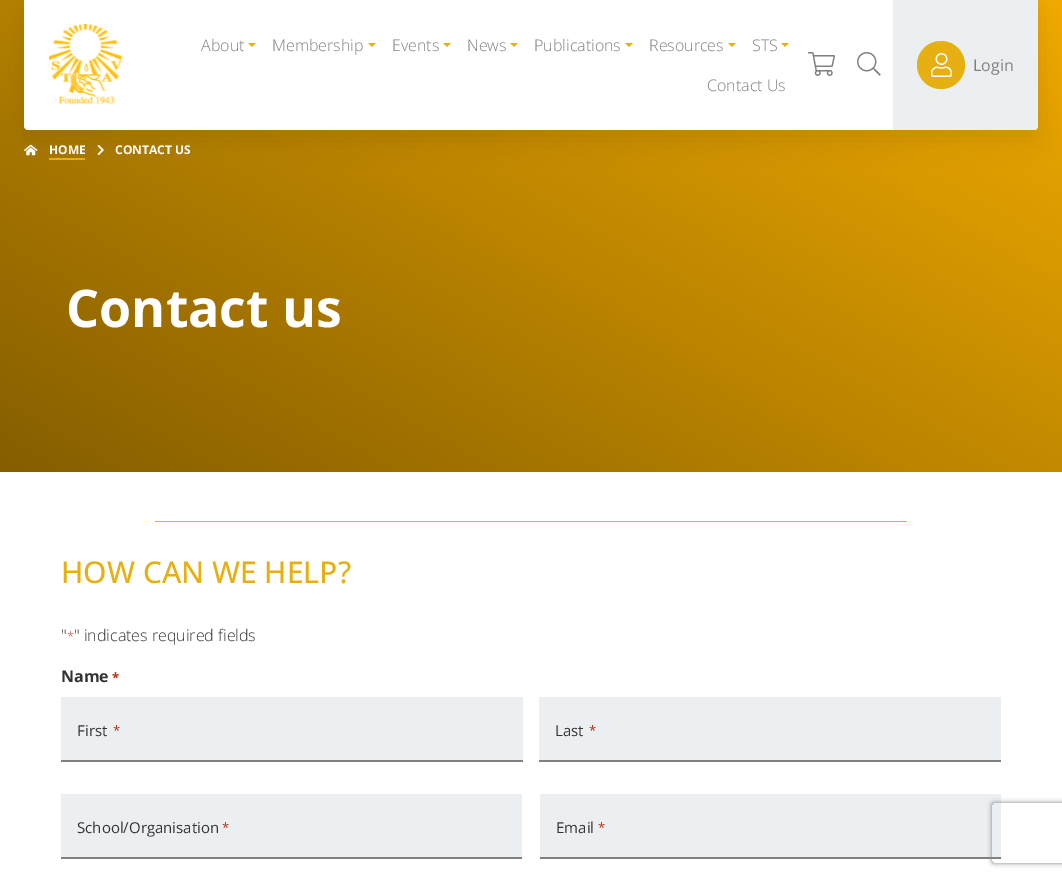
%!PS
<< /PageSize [1062 877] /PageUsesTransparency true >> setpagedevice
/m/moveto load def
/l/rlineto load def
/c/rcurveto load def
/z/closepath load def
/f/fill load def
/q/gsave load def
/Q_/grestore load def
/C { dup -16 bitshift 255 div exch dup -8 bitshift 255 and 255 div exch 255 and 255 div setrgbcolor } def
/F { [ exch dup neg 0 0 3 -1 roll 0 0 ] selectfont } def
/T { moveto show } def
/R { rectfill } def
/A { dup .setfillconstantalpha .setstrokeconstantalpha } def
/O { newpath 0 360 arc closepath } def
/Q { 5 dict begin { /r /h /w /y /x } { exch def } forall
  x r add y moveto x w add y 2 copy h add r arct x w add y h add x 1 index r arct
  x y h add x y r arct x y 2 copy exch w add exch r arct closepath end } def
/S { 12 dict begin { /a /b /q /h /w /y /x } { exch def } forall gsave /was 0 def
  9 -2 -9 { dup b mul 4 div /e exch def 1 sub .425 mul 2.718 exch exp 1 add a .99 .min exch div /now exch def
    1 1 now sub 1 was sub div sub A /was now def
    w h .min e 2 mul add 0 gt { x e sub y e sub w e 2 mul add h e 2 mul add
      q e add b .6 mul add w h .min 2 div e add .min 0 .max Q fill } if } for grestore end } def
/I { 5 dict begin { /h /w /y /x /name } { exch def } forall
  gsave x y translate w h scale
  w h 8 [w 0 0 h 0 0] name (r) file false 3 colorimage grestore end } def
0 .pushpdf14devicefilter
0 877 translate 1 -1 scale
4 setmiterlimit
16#FFFFFF C
0 0 1062 877 R
q 0 0 m 1062 0 l 0 472 l -1062 0 l z clip newpath
<< /ShadingType 2 /ColorSpace /DeviceRGB /Coords [296 643 766 -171] /Extend [true true] /Function << /FunctionType 2 /Domain [0 1] /C0 [.522 .369 0] /C1 [.949 .671 0] /N 1 >> >> shfill Q_
16#000000 C
24 10 1014 130 4 12.5 .1 S
16#FFFFFF C
24 0 m 1014 0 l 0 126 l 0 2 -2 4 -4 4 c -1006 0 l -2 0 -4 -2 -4 -4 c z f
(1.rgb) 48 24 75 82 I
/OpenSans-Light 16 F
16#808080 C
(About) 201 51 T
16#E6B012 C
248 43 m 8 0 l -4 4 l z f
16#808080 C
(Membership) 272 51 T
16#E6B012 C
368 43 m 8 0 l -4 4 l z f
16#808080 C
(Events) 392 51 T
16#E6B012 C
443 43 m 8 0 l -4 4 l z f
16#808080 C
(News) 467 51 T
16#E6B012 C
510 43 m 8 0 l -4 4 l z f
16#808080 C
(Publications) 534 51 T
16#E6B012 C
625 43 m 8 0 l -4 4 l z f
16#808080 C
(Resources) 649 51 T
16#E6B012 C
728 43 m 8 0 l -4 4 l z f
16#808080 C
(STS) 752 51 T
16#E6B012 C
781 43 m 8 0 l -4 4 l z f
16#808080 C
(Contact Us) 707 91 T
(2.rgb) 808 52 27 24 I
(3.rgb) 857 52 24 24 I
16#EBEFF2 C
893 0 m 145 0 l 0 126 l 0 2 -2 4 -4 4 c -141 0 l z f
16#E6B012 C
941 65 24 O f
(4.rgb) 931 53 21 24 I
/OpenSans-Regular 16 F
16#808080 C
(Login) 973 71 T
(5.rgb) 24 144 14 12 I
/OpenSans-Bold 12 F
16#FFFFFF C
(HOME) 49 154 T
16#E6B012 C
49 158 36 2 R
(6.rgb) 97 144 7 12 I
16#FFFFFF C
(CONTACT US) 115 154 T
/OpenSans-Bold 52 F
(Contact us) 66 327 T
16#E6B012 C
155 521 752 1 R
/OpenSans-Medium 30 F
(HOW CAN WE HELP?) 61 583 T
/OpenSans-Light 16 F
16#333333 C
(") 61 641 T
/OpenSans-Light 13 F
16#C02B0A C
(*) 67 641 T
/OpenSans-Light 16 F
16#333333 C
(" indicates required fields) 74 641 T
/OpenSans-Bold 16 F
(Name) 61 682 T
/OpenSans-Bold 13 F
16#C02B0A C
(*) 112 682 T
16#EBEFF2 C
61 697 462 63 R
16#808080 C
61 760 462 2 R
/OpenSans-Regular 15 F
16#333333 C
(First) 77 736 T
/OpenSans-Regular 13 F
16#C02B0A C
(*) 113 735 T
16#EBEFF2 C
539 697 462 63 R
16#808080 C
539 760 462 2 R
/OpenSans-Regular 15 F
16#333333 C
(Last) 555 736 T
/OpenSans-Regular 13 F
16#C02B0A C
(*) 589 735 T
16#EBEFF2 C
61 794 461 63 R
16#808080 C
61 857 461 2 R
/OpenSans-Regular 15 F
16#333333 C
(School/Organisation) 77 833 T
/OpenSans-Regular 13 F
16#C02B0A C
(*) 222 832 T
16#EBEFF2 C
540 794 461 63 R
16#808080 C
540 857 461 2 R
/OpenSans-Regular 15 F
16#333333 C
(Email) 556 833 T
/OpenSans-Regular 13 F
16#C02B0A C
(*) 598 832 T
q
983 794 m 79 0 l 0 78 l -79 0 l z 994 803 m 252 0 l 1 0 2 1 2 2 c 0 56 l 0 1 -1 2 -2 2 c -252 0 l -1 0 -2 -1 -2 -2 c 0 -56 l 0 -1 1 -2 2 -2 c z eoclip newpath
16#808080 C
992 803 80 60 2 2.5 1 S
Q_
.poppdf14devicefilter showpage
